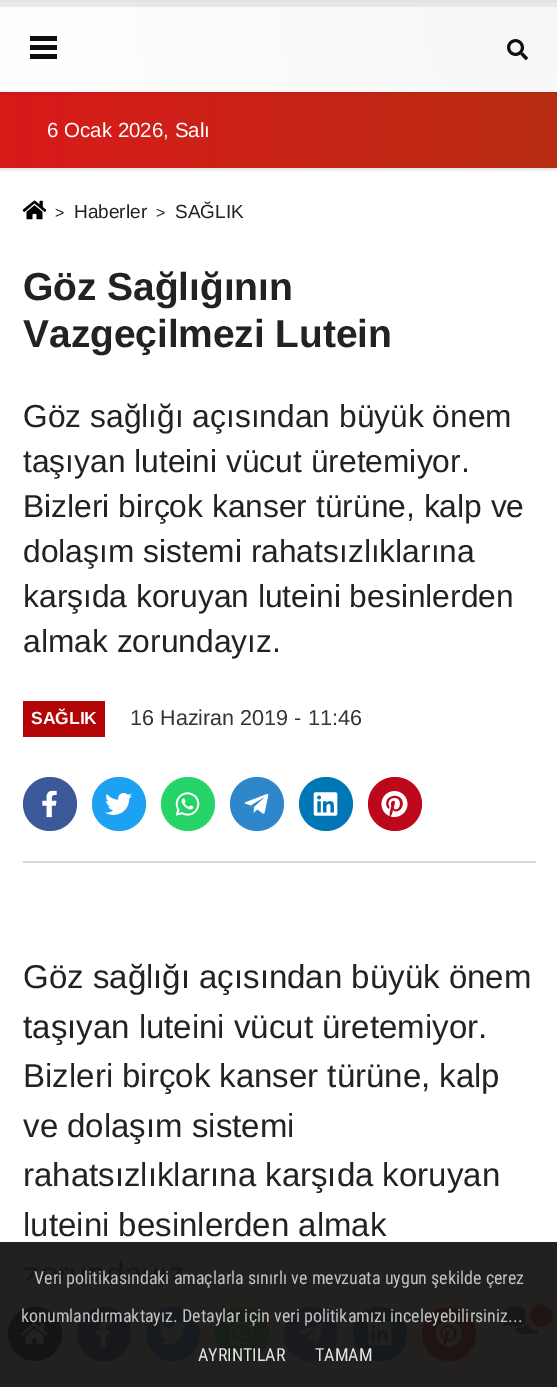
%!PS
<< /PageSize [557 1387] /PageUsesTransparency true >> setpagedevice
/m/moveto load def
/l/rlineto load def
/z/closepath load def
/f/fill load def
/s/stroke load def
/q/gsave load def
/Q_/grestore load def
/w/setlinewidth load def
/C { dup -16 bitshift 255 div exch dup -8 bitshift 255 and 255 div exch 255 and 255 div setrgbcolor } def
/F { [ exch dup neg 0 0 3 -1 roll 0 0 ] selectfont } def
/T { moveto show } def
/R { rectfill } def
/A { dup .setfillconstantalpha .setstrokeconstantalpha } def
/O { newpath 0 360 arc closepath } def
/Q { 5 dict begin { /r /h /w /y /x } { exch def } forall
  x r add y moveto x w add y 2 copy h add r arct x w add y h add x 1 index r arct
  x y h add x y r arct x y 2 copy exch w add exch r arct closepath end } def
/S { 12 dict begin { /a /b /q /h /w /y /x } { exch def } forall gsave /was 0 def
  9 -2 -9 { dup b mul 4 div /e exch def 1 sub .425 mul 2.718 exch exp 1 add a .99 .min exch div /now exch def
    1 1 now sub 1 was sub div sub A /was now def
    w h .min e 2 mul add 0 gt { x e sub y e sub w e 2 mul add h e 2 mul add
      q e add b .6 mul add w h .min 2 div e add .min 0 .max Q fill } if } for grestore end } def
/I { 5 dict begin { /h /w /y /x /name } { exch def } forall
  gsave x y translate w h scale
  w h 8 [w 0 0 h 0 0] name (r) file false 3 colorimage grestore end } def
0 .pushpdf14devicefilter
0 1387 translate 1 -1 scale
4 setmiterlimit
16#E6E6E6 C
0 0 557 1387 R
16#FFFFFF C
0 168 557 1074 R
16#000000 C
0 93 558 77 0 1.5 .1 S
q 0 92 m 557 0 l 0 76 l -557 0 l z clip newpath
<< /ShadingType 2 /ColorSpace /DeviceRGB /Coords [0 130 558 130] /Extend [true true] /Function << /FunctionType 2 /Domain [0 1] /C0 [.851 .102 .102] /C1 [.722 .176 .078] /N 1 >> >> shfill Q_
0 3 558 90 0 1.5 .1 S
q 0 7 m 557 0 l 0 83 l -557 0 l z clip newpath 558 6 translate 564 564 scale
<< /ShadingType 3 /ColorSpace /DeviceRGB /Coords [0 0 0 0 0 1] /Extend [true true] /Function << /FunctionType 2 /Domain [0 1] /C0 [.969 .969 .969] /C1 [1 1 1] /N 1 >> >> shfill Q_
16#EBE7E6 C
0 2 557 5 R
16#F5F5F5 C
0 90 557 2 R
16#0F0F0F C
30 36 27 5 R
30 45 27 5 R
30 54 27 5 R
(1.rgb) 507 39 21 21 I
/LiberationSans-Regular 20.5 F
16#FFFFFF C
(6 Ocak 2026, Salı) 47 137 T
16#232020 C
0 1242 557 38 R
(2.rgb) 22 200 25 20 I
/LiberationSans-Regular 16 F
16#222222 C
(>) 55 218 T
/LiberationSans-Regular 19 F
(Haberler) 74 218 T
/LiberationSans-Regular 16 F
(>) 156 218 T
/LiberationSans-Regular 19 F
(SAĞLIK) 175 218 T
/LiberationSans-Bold 39 F
23 300 m -.1 0 (Göz Sağlığının) ashow
23 347 m -.1 0 (Vazgeçilmezi Lutein) ashow
/LiberationSans-Regular 31.75 F
(Göz sağlığı açısından büyük önem) 23 427 T
(taşıyan luteini vücut üretemiyor.) 23 472 T
(Bizleri birçok kanser türüne, kalp ve) 23 517 T
(dolaşım sistemi rahatsızlıklarına) 23 562 T
(karşıda koruyan luteini besinlerden) 23 607 T
(almak zorundayız.) 23 652 T
16#B30505 C
23 701 82 36 R
/LiberationSans-Bold 17.5 F
16#FFFFFF C
(SAĞLIK) 31 724 T
/LiberationSans-Regular 21.6 F
16#333333 C
(16 Haziran 2019 - 11:46) 130 725 T
16#3B5998 C
50 804 27 O f
(3.rgb) 42 790 15 28 I
16#1DA1F2 C
119 804 27 O f
(4.rgb) 105 793 27 22 I
16#25D366 C
188 804 27 O f
(5.rgb) 175 792 25 24 I
16#2E87CA C
257 804 27 O f
(6.rgb) 244 794 25 20 I
16#0077B5 C
326 804 27 O f
(7.rgb) 313 792 25 24 I
16#BD081C C
395 804 27 O f
(8.rgb) 381 791 27 26 I
16#1F1C1C C
0 1278 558 108 0 3 .58 S
/LiberationSans-Regular 33 F
16#181515 C
(zorundayız) 23 1285 T
16#232020 C
0 1280 557 107 R
16#161313 C
35 1334 27 O f
(9.rgb) 21 1323 27 21 I
16#19171B C
104 1334 27 O f
(10.rgb) 96 1320 15 27 I
16#171B1F C
173 1334 27 O f
(11.rgb) 159 1322 27 23 I
16#181E18 C
242 1334 27 O f
(12.rgb) 229 1321 25 25 I
16#181A1D C
311 1334 27 O f
(13.rgb) 298 1323 25 21 I
16#16191C C
380 1334 27 O f
(14.rgb) 367 1321 25 25 I
16#1F1314 C
449 1334 27 O f
(15.rgb) 435 1320 27 27 I
(16.rgb) 502 1306 37 28 I
16#201515 C
541.5 1315.5 14 O q f Q_
16#232020 C
5 w
s
16#D9D9D9 C
23 861 513 2 R
16#222222 C
(Göz sağlığı açısından büyük önem) 23 988 T
(taşıyan luteini vücut üretemiyor.) 23 1038 T
(Bizleri birçok kanser türüne, kalp) 23 1087 T
(ve dolaşım sistemi) 23 1137 T
(rahatsızlıklarına karşıda koruyan) 23 1186 T
(luteini besinlerden almak) 23 1236 T
/RobotoCondensed-Regular 18 F
16#C3C3C3 C
(Veri politikasındaki amaçlarla sınırlı ve mevzuata uygun şekilde çerez) 34 1284 T
(konumlandırmaktayız. Detaylar için veri politikamızı inceleyebilirsiniz...) 21 1322 T
16#E4E4E4 C
(AYRINTILAR) 198 1361 T
(TAMAM) 315 1361 T
.poppdf14devicefilter showpage
